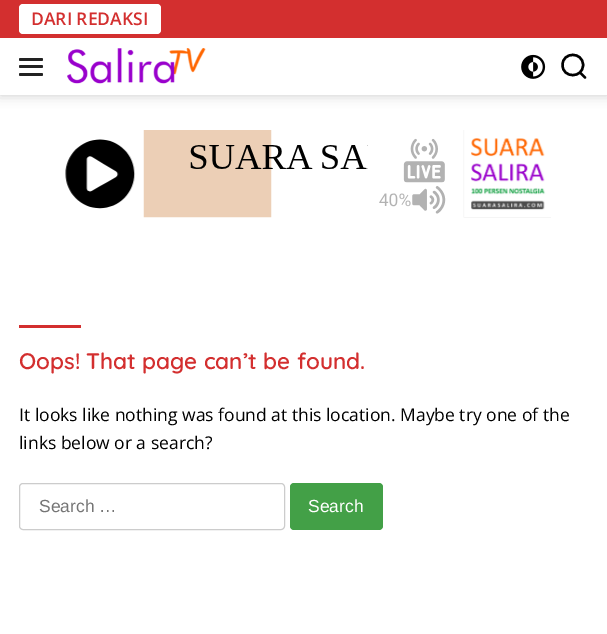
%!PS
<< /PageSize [607 634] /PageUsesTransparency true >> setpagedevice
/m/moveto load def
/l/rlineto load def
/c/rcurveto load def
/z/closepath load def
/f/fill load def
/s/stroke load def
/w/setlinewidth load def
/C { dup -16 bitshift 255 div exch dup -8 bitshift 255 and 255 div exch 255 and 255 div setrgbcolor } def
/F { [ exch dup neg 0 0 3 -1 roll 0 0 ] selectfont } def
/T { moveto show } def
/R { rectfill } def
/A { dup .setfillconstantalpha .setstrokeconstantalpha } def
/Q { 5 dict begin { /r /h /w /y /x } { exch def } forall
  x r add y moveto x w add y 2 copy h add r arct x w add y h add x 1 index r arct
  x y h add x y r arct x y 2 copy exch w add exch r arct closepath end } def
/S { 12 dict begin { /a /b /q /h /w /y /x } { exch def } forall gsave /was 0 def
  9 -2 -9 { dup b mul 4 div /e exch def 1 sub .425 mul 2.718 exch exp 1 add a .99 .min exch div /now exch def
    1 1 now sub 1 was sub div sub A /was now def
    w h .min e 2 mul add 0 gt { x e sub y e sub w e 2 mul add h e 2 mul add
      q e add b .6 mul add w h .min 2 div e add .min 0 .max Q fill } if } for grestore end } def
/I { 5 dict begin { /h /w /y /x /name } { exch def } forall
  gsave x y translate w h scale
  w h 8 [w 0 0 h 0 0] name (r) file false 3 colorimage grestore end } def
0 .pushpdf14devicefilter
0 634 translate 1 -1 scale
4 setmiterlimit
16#FFFFFF C
0 0 607 634 R
16#000000 C
0 0 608 95 0 6 .2 S
16#FFFFFF C
0 38 607 57 R
16#D32F2F C
0 0 607 38 R
16#FFFFFF C
19 4 142 30 4 Q f
/OpenSans-SemiBold 17.5 F
16#D32F2F C
(DARI REDAKSI) 31 25 T
16#222222 C
19 58 24 3 1.5 Q f
19 65 24 3 1.5 Q f
19 73 24 3 1.5 Q f
(1.rgb) 67 48 139 36 I
(2.rgb) 521 54 25 25 I
16#000000 C
2.4 w
1 setlinecap
585 77.5 m -5 -5 l 583 65 m 0 13.5 -20.5 13.5 -20.5 0 c 0 -13.5 20.5 -13.5 20.5 0 c z s
(3.rgb) 65 130 486 88 I
16#D32F2F C
19 325 62 3 R
/Quicksand-SemiBold 22.5 F
(Oops! That page can’t be found.) 19 369 T
/OpenSans-Regular 17.5 F
16#000000 C
(It looks like nothing was found at this location. Maybe try one of the) 19 421 T
(links below or a search?) 19 449 T
16#CCCCCC C
1 w
0 setlinecap
19.5 483.5 265 46 3.5 Q s
/LiberationSans-Regular 17.5 F
16#757575 C
(Search …) 39 512 T
16#43A047 C
290 483 93 47 4 Q f
16#FFFFFF C
(Search) 308 512 T
.poppdf14devicefilter showpage
